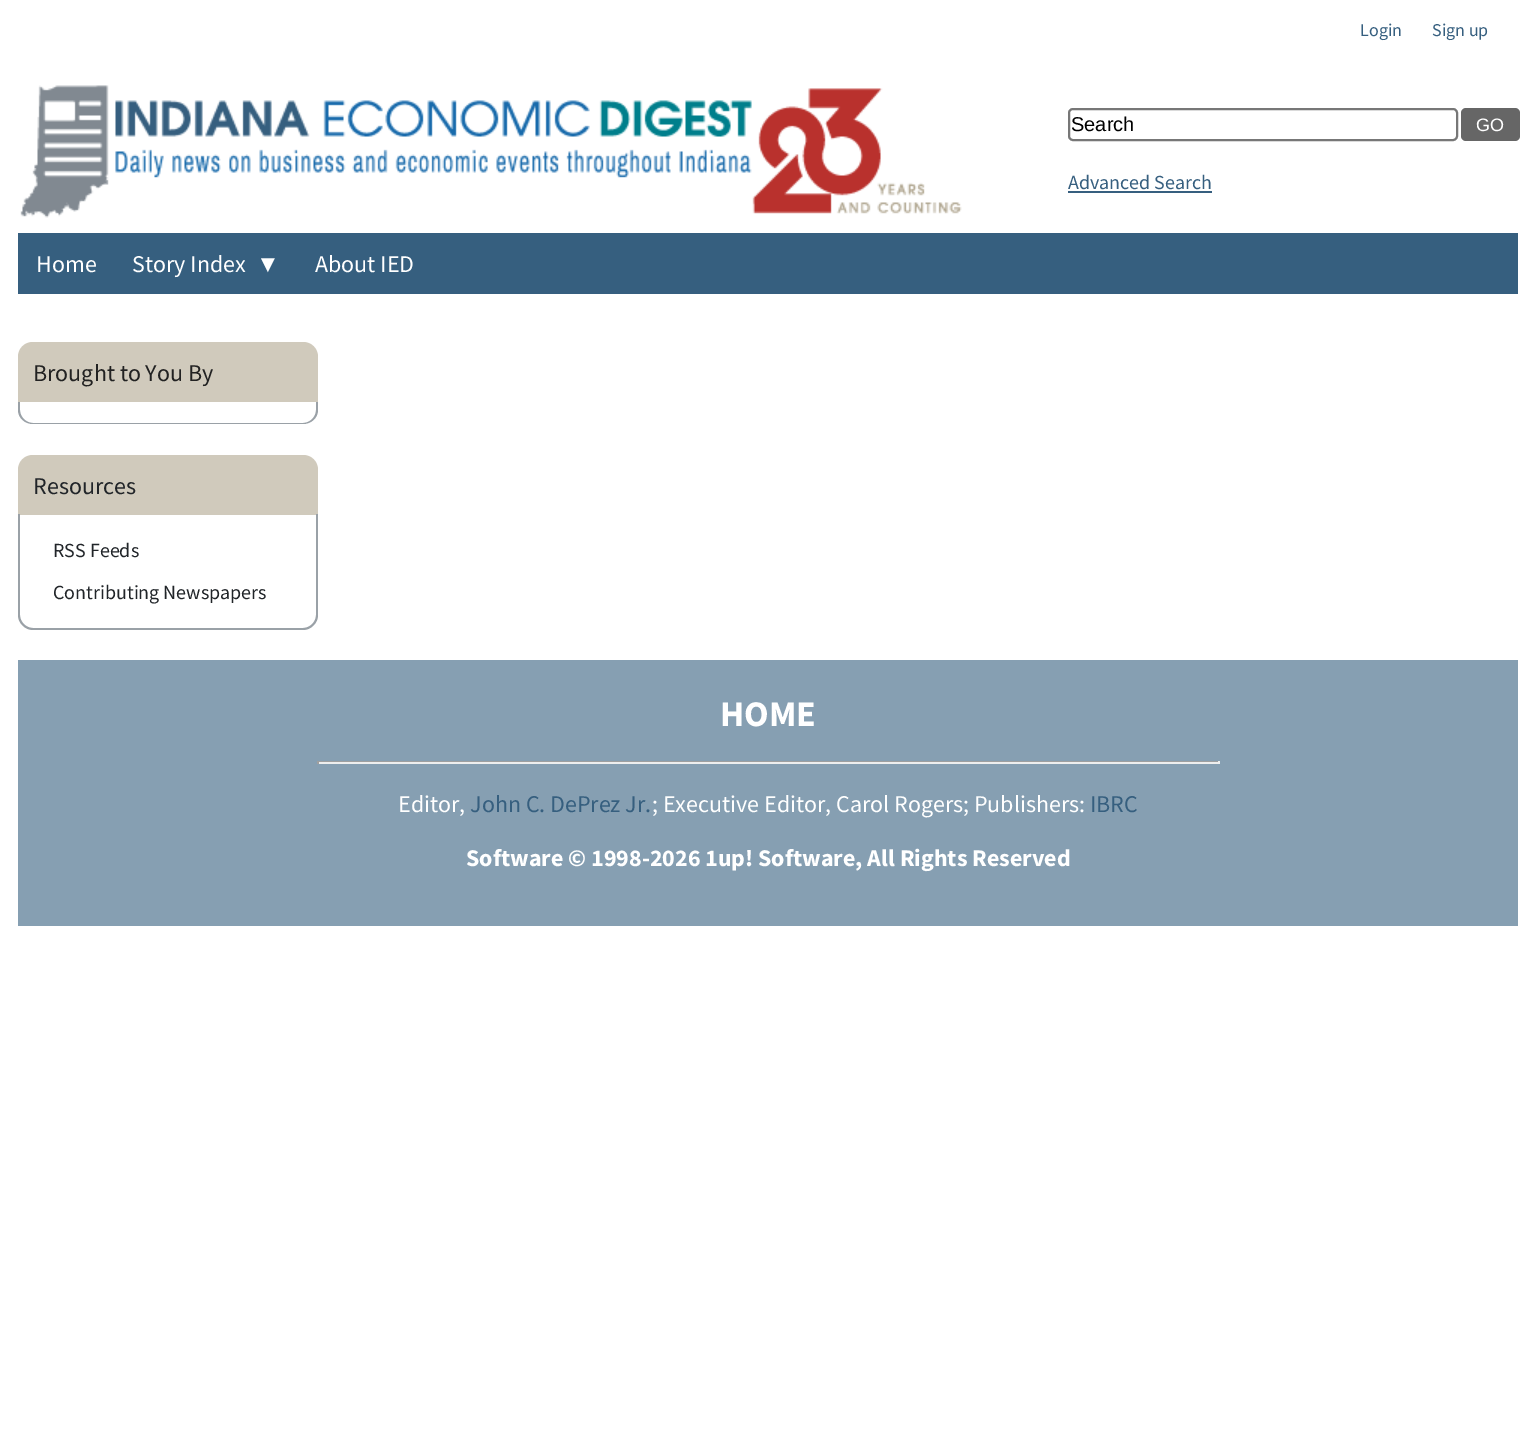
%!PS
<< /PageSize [1536 1433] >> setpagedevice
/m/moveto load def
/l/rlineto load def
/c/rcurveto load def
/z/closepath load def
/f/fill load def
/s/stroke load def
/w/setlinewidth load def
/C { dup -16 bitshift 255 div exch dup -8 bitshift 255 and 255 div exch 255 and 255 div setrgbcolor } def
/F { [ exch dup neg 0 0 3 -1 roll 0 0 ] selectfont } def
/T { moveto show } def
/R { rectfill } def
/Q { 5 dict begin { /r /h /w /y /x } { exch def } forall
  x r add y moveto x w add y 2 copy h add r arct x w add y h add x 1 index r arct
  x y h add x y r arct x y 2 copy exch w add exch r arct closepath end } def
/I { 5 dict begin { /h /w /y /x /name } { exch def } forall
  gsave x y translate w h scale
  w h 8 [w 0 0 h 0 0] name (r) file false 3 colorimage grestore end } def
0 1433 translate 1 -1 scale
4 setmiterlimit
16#FFFFFF C
0 0 1536 1433 R
/SourceSansPro-Regular 18 F
16#365F7F C
(Login) 1360 36 T
(Sign up) 1432 36 T
(1.rgb) 20 85 942 133 I
16#777777 C
2 w
1069 109 388 31 4 Q s
/LiberationSans-Regular 20 F
16#000000 C
(Search) 1071 131 T
16#666666 C
1461 108 59 33 5 Q f
/LiberationSans-Regular 18 F
16#FFFFFF C
(GO) 1476 131 T
/SourceSansPro-Regular 20 F
16#365F7F C
(Advanced Search) 1068 189 T
1068 191 144 2 R
18 233 1500 61 R
/SourceSansPro-Regular 24 F
16#FFFFFF C
(Home) 36 272 T
(Story Index) 132 272 T
/LiberationSerif-Regular 24 F
(▼) 256 272 T
/SourceSansPro-Regular 24 F
(About IED) 315 272 T
16#D0CABC C
33 342 m 270 0 l 8.5 0 15 6.5 15 15 c 0 45 l -300 0 l 0 -45 l 0 -8.5 6.5 -15 15 -15 c z f
16#222222 C
(Brought to You By) 33 381 T
16#9AA1A7 C
18 402 m 300 0 l 0 8 l 0 8 -7 14 -15 14 c -270 0 l -8 0 -15 -6 -15 -14 c z 20 402 m 296 0 l 0 8 l 0 7 -6 13 -13 13 c -270 0 l -7 0 -13 -6 -13 -13 c z eofill
16#D0CABC C
33 455 m 270 0 l 8.5 0 15 6.5 15 15 c 0 45 l -300 0 l 0 -45 l 0 -8.5 6.5 -15 15 -15 c z f
16#212529 C
(Resources) 33 494 T
16#9AA1A7 C
18 514 m 300 0 l 0 101 l 0 8 -7 15 -15 15 c -270 0 l -8 0 -15 -7 -15 -15 c z 20 514 m 296 0 l 0 101 l 0 7 -6 13 -13 13 c -270 0 l -7 0 -13 -6 -13 -13 c z eofill
/SourceSansPro-Regular 20 F
16#212529 C
(RSS Feeds) 53 557 T
(Contributing Newspapers) 53 599 T
16#869FB2 C
18 660 1500 266 R
/SourceSansPro-Bold 36 F
16#FFFFFF C
(HOME) 720 726 T
16#9F9F9F C
317 761 903 1 R
16#EEEEEE C
1218 761 2 3 R
317 762 903 2 R
16#9F9F9F C
317 761 2 3 R
/SourceSansPro-Regular 24 F
16#FFFFFF C
(Editor,) 398 812 T
16#365F7F C
(John C. DePrez Jr.) 470 812 T
16#FFFFFF C
(; Executive Editor, Carol Rogers; Publishers:) 652 812 T
16#365F7F C
(IBRC) 1090 812 T
/SourceSansPro-Bold 24 F
16#FFFFFF C
(Software © 1998-2026 1up! Software, All Rights Reserved) 466 866 T
showpage
